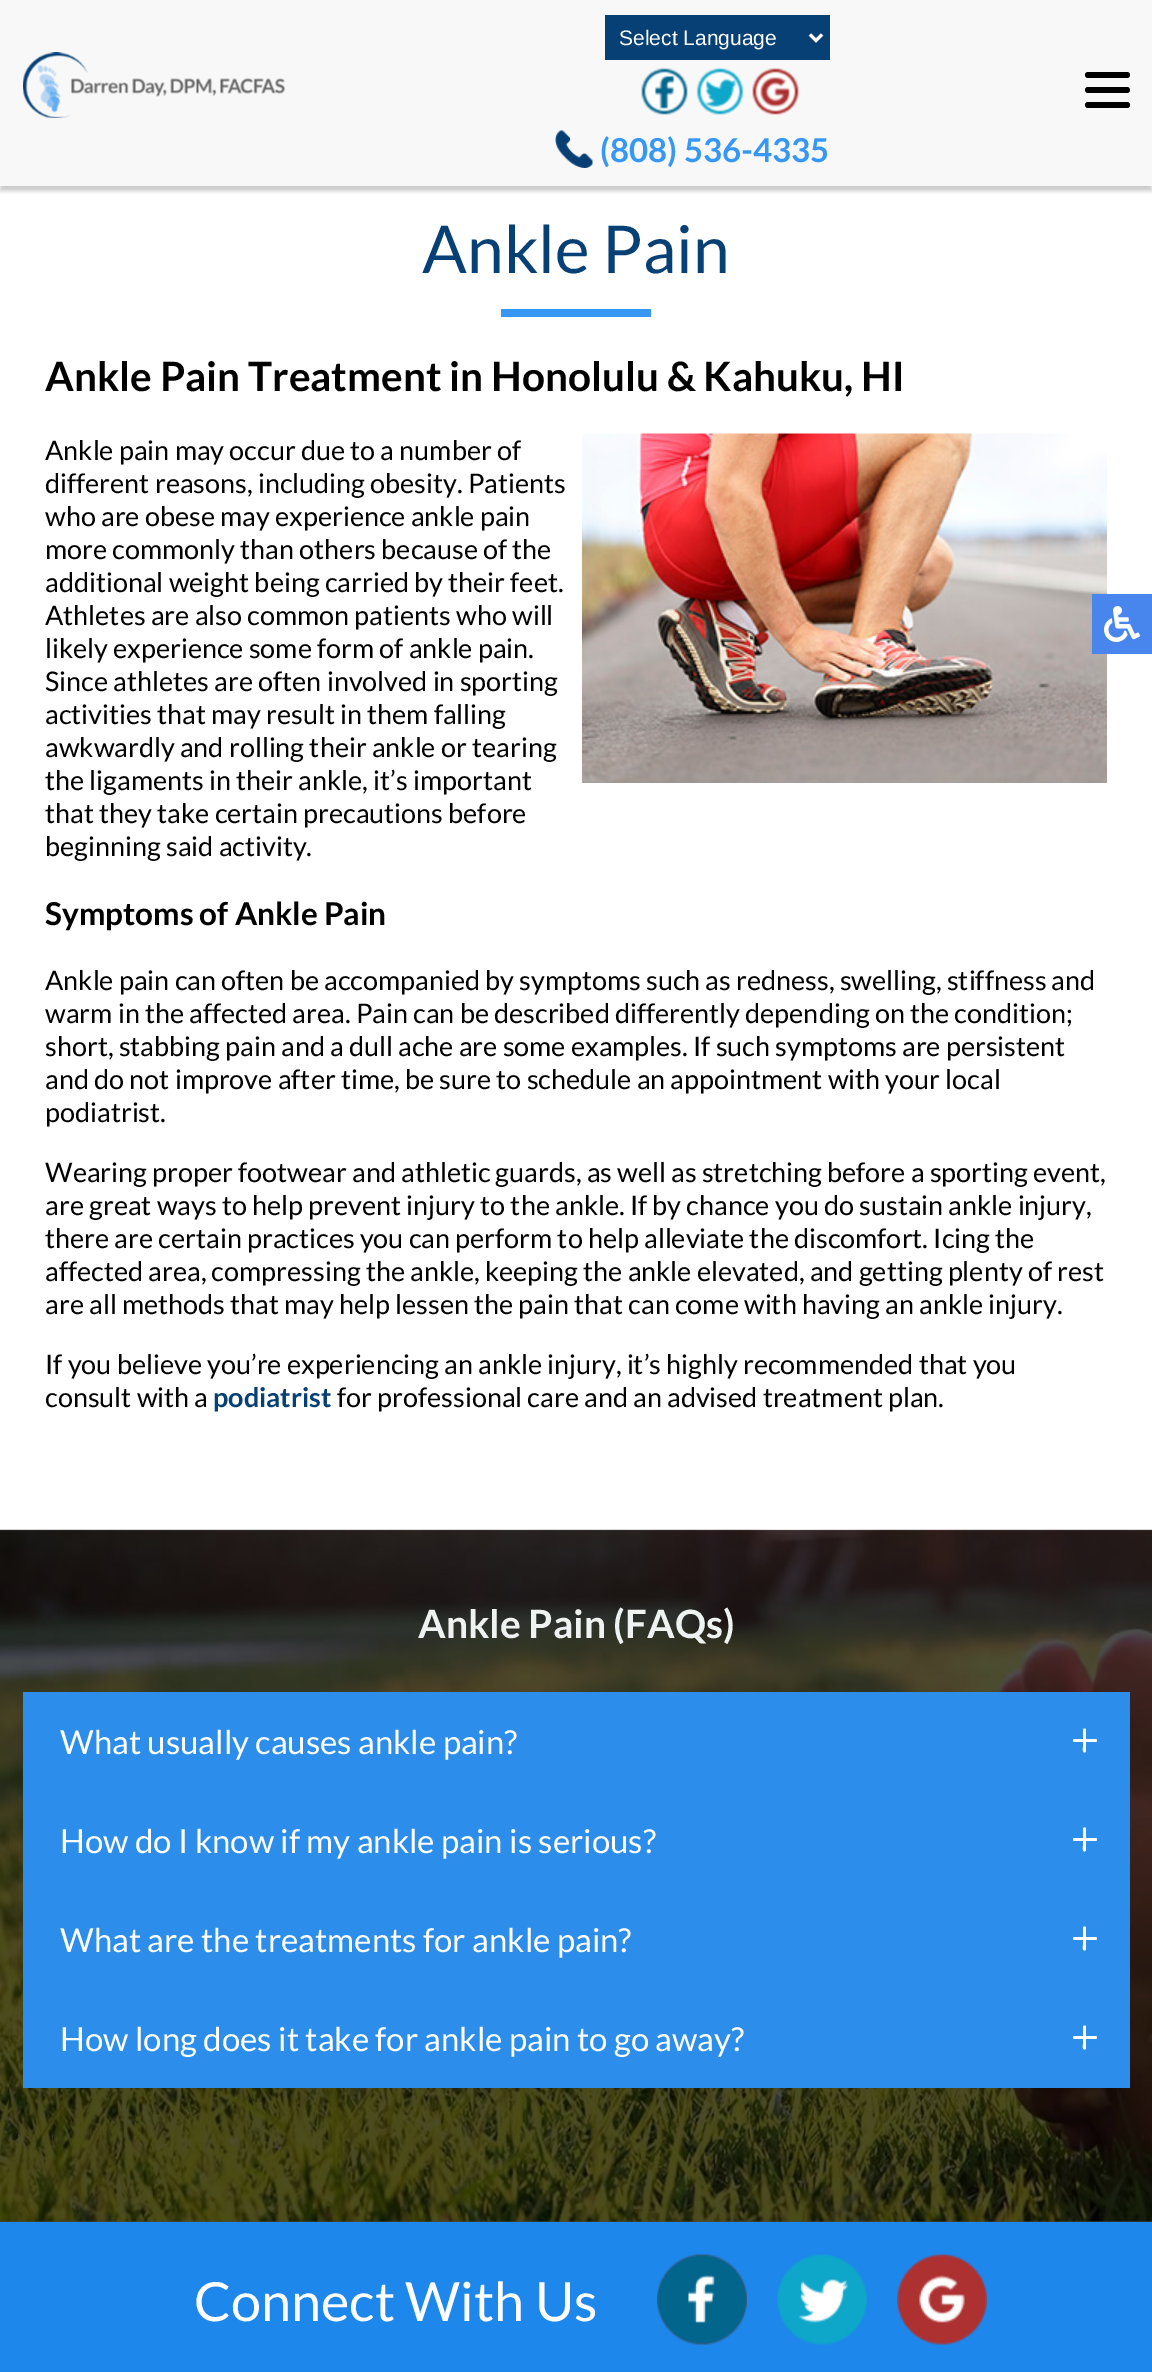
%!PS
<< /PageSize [1152 2372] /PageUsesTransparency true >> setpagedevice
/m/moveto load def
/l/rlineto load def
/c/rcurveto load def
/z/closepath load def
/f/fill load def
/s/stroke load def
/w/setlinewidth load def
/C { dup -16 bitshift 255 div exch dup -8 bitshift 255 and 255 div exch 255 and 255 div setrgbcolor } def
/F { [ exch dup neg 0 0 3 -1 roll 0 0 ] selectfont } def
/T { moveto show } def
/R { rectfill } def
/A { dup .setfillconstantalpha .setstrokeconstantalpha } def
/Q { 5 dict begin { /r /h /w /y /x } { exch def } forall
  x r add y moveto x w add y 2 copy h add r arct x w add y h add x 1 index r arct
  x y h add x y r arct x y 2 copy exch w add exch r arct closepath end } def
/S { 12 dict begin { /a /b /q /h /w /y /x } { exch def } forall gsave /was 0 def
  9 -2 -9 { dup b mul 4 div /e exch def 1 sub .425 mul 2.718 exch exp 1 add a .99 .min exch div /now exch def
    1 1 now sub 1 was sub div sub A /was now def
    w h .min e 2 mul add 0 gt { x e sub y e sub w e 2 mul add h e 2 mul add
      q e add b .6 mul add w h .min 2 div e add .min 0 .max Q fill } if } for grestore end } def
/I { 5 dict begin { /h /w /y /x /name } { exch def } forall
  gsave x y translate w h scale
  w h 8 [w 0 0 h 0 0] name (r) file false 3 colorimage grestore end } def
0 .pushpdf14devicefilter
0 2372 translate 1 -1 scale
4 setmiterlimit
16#FFFFFF C
0 0 1152 2372 R
16#4D4D4D C
0 1530 1152 692 R
16#000000 C
0 5 1152 186 0 2 .2 S
16#F8F8F8 C
0 0 1152 186 R
(1.rgb) 23 52 263 66 I
16#074075 C
605 15 225 45 R
16#FFFFFF C
3 w
810 34.5 m 6 6 l 6 -6 l s
/LiberationSans-Regular 21 F
(Select Language) 619 45 T
(2.rgb) 641 68 47 47 I
(3.rgb) 696 68 48 47 I
(4.rgb) 752 68 47 47 I
(5.rgb) 555 130 38 38 I
/Lato-Bold 33 F
16#3698F4 C
(\(808\) 536-4335) 600 162 T
16#000000 C
1085 72 45 6 3 Q f
1085 87 45 6 3 Q f
1085 102 45 6 3 Q f
/Lato-Regular 66 F
16#074075 C
(Ankle Pain) 422 273 T
16#3698F4 C
501 309 150 8 R
/Lato-Bold 40.5 F
16#000000 C
(Ankle Pain Treatment in Honolulu & Kahuku, HI) 45 391 T
/Lato-Regular 27 F
(Ankle pain may occur due to a number of) 45 460 T
(6.rgb) 582 433 525 350 I
(different reasons, including obesity. Patients) 45 493 T
(who are obese may experience ankle pain) 45 526 T
(more commonly than others because of the) 45 559 T
(additional weight being carried by their feet.) 45 592 T
(Athletes are also common patients who will) 45 625 T
(likely experience some form of ankle pain.) 45 658 T
(Since athletes are often involved in sporting) 45 691 T
(activities that may result in them falling) 45 724 T
(awkwardly and rolling their ankle or tearing) 45 757 T
(the ligaments in their ankle, it’s important) 45 790 T
(that they take certain precautions before) 45 823 T
(beginning said activity.) 45 856 T
/Lato-Bold 31.5 F
(Symptoms of Ankle Pain) 45 925 T
/Lato-Regular 27 F
(Ankle pain can often be accompanied by symptoms such as redness, swelling, stiffness and) 45 990 T
(warm in the affected area. Pain can be described differently depending on the condition;) 45 1023 T
(short, stabbing pain and a dull ache are some examples. If such symptoms are persistent) 45 1056 T
(and do not improve after time, be sure to schedule an appointment with your local) 45 1089 T
(podiatrist.) 45 1122 T
(Wearing proper footwear and athletic guards, as well as stretching before a sporting event,) 45 1182 T
(are great ways to help prevent injury to the ankle. If by chance you do sustain ankle injury,) 45 1215 T
(there are certain practices you can perform to help alleviate the discomfort. Icing the) 45 1248 T
(affected area, compressing the ankle, keeping the ankle elevated, and getting plenty of rest) 45 1281 T
(are all methods that may help lessen the pain that can come with having an ankle injury.) 45 1314 T
(If you believe you’re experiencing an ankle injury, it’s highly recommended that you) 45 1374 T
(consult with a) 45 1407 T
/Lato-Bold 27 F
16#074075 C
(podiatrist) 213 1407 T
/Lato-Regular 27 F
16#000000 C
(for professional care and an advised treatment plan.) 337 1407 T
16#4885ED C
1092 594 60 60 R
(7.rgb) 1104 606 36 36 I
(8.rgb) 0 1529 1152 693 I
/Lato-Bold 39 F
16#EEF2F1 C
(Ankle Pain \(FAQs\)) 418 1638 T
16#2C8EEA C
23 1692 1107 396 R
/Lato-Regular 33 F
16#FFFFFF C
(What usually causes ankle pain?) 60 1754 T
1073 1739 24 3 1.5 Q f
1086 1730 m 0 21.5 l -.5 1 -2 1.5 -2.5 .5 c -1 -1 -.5 -4.5 -.5 -4.5 c 0 -17.5 l 0 -2 3 -2 3 0 c z f
(How do I know if my ankle pain is serious?) 60 1853 T
1073 1838 24 3 1.5 Q f
1086 1829 m 0 21.5 l -.5 1 -2 1.5 -2.5 .5 c -1 -1 -.5 -4.5 -.5 -4.5 c 0 -17.5 l 0 -2 3 -2 3 0 c z f
(What are the treatments for ankle pain?) 60 1952 T
1073 1937 24 3 1.5 Q f
1086 1928 m 0 21.5 l -.5 1 -2 1.5 -2.5 .5 c -1 -1 -.5 -4.5 -.5 -4.5 c 0 -17.5 l 0 -2 3 -2 3 0 c z f
(How long does it take for ankle pain to go away?) 60 2051 T
1073 2036 24 3 1.5 Q f
1086 2027 m 0 21.5 l -.5 1 -2 1.5 -2.5 .5 c -1 -1 -.5 -4.5 -.5 -4.5 c 0 -17.5 l 0 -2 3 -2 3 0 c z f
16#1E87EB C
0 2222 1152 150 R
/Lato-Regular 54 F
16#FFFFFF C
(Connect With Us) 194 2321 T
(9.rgb) 657 2254 90 91 I
(10.rgb) 777 2254 90 91 I
(11.rgb) 897 2254 90 91 I
.poppdf14devicefilter showpage
